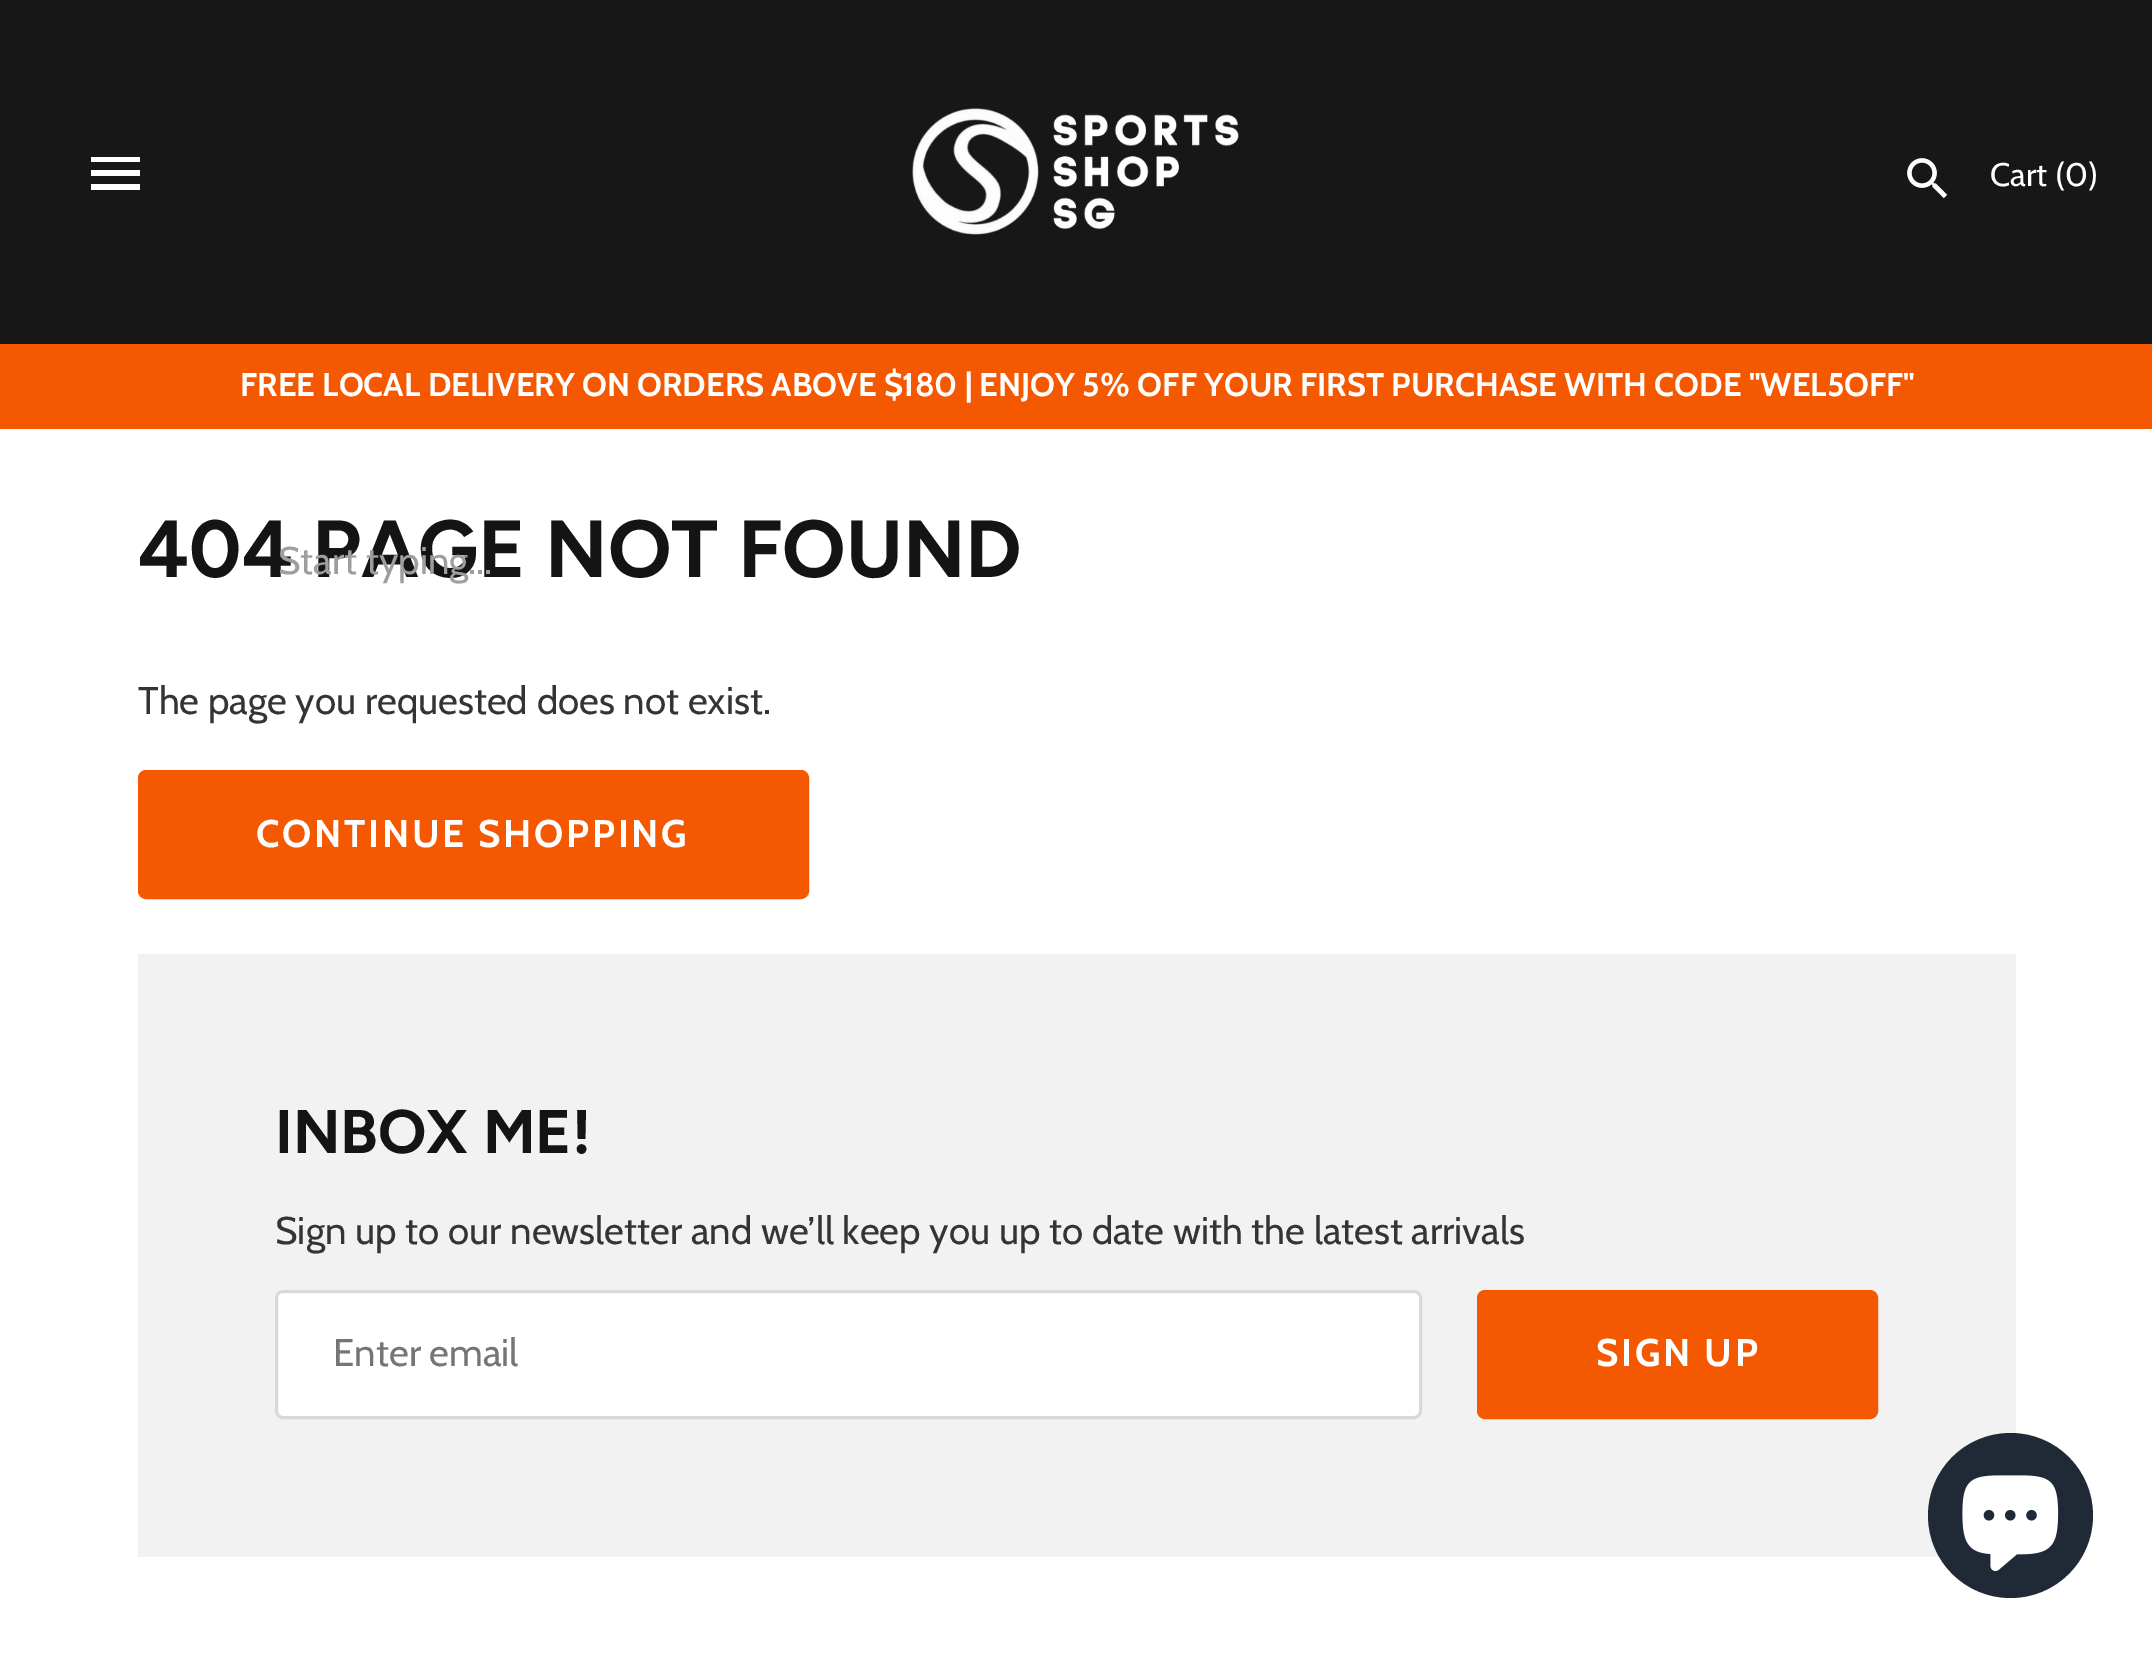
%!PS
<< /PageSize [2152 1654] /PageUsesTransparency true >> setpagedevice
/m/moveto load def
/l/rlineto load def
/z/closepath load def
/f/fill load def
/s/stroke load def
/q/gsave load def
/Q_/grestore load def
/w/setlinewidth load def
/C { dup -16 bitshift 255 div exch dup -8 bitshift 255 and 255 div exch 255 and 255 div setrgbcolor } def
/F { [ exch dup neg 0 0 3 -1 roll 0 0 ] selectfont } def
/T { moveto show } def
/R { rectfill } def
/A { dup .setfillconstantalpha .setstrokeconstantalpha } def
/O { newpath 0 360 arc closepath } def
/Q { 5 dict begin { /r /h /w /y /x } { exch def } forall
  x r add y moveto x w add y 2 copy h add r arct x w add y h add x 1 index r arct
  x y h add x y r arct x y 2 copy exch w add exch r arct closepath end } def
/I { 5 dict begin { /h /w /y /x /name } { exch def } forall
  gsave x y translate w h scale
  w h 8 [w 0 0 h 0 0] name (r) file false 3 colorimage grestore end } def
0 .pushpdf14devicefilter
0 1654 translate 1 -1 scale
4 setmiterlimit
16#FFFFFF C
0 0 2152 1654 R
16#171717 C
0 0 2152 344 R
16#FFFFFF C
91 190 m 49 0 l 0 -6 l -49 0 l z 91 176 m 49 0 l 0 -6 l -49 0 l z 91 157 m 0 5 l 49 0 l 0 -5 l z f
(1.rgb) 912 108 327 127 I
(2.rgb) 1907 158 41 41 I
/Cabin-Regular 32.73 F
(Cart \(0\)) 1990 186 T
16#F45902 C
0 344 2152 85 R
/Cabin-Bold 32.73 F
16#FFFFFF C
(FREE LOCAL DELIVERY ON ORDERS ABOVE $180 | ENJOY 5% OFF YOUR FIRST PURCHASE WITH CODE "WEL5OFF") 240 396 T
/Figtree-Bold 80.8 F
16#141414 C
(404 PAGE NOT FOUND) 138 577 T
/Cabin-Regular 38.5 F
16#9E9E9E C
(Start typing...) 278 574 T
16#343434 C
(The page you requested does not exist.) 138 714 T
16#F45902 C
139.5 771.5 668 126 6.5 Q q f Q_
3 w
s
/Cabin-Bold 38.5 F
16#FFFFFF C
256 847 m 2.75 0 (CONTINUE SHOPPING) ashow
16#F2F2F2 C
138 954 1878 603 R
/Figtree-Bold 61.5 F
16#141414 C
(INBOX ME!) 275 1153 T
/Cabin-Regular 38.5 F
16#343434 C
(Sign up to our newsletter and we’ll keep you up to date with the latest arrivals) 275 1244 T
16#FFFFFF C
275 1290 1147 129 8 Q f
0.15 A
16#000000 C
276.5 1291.5 1144 126 6.5 Q s
1 A
16#757575 C
(Enter email) 333 1366 T
16#F45902 C
1478.5 1291.5 398 126 6.5 Q q f Q_
s
/Cabin-Bold 38.5 F
16#FFFFFF C
1596 1366 m 2.75 0 (SIGN UP) ashow
16#202A36 C
2010.5 1515.5 82.5 O f
(3.rgb) 1962 1475 97 97 I
.poppdf14devicefilter showpage
